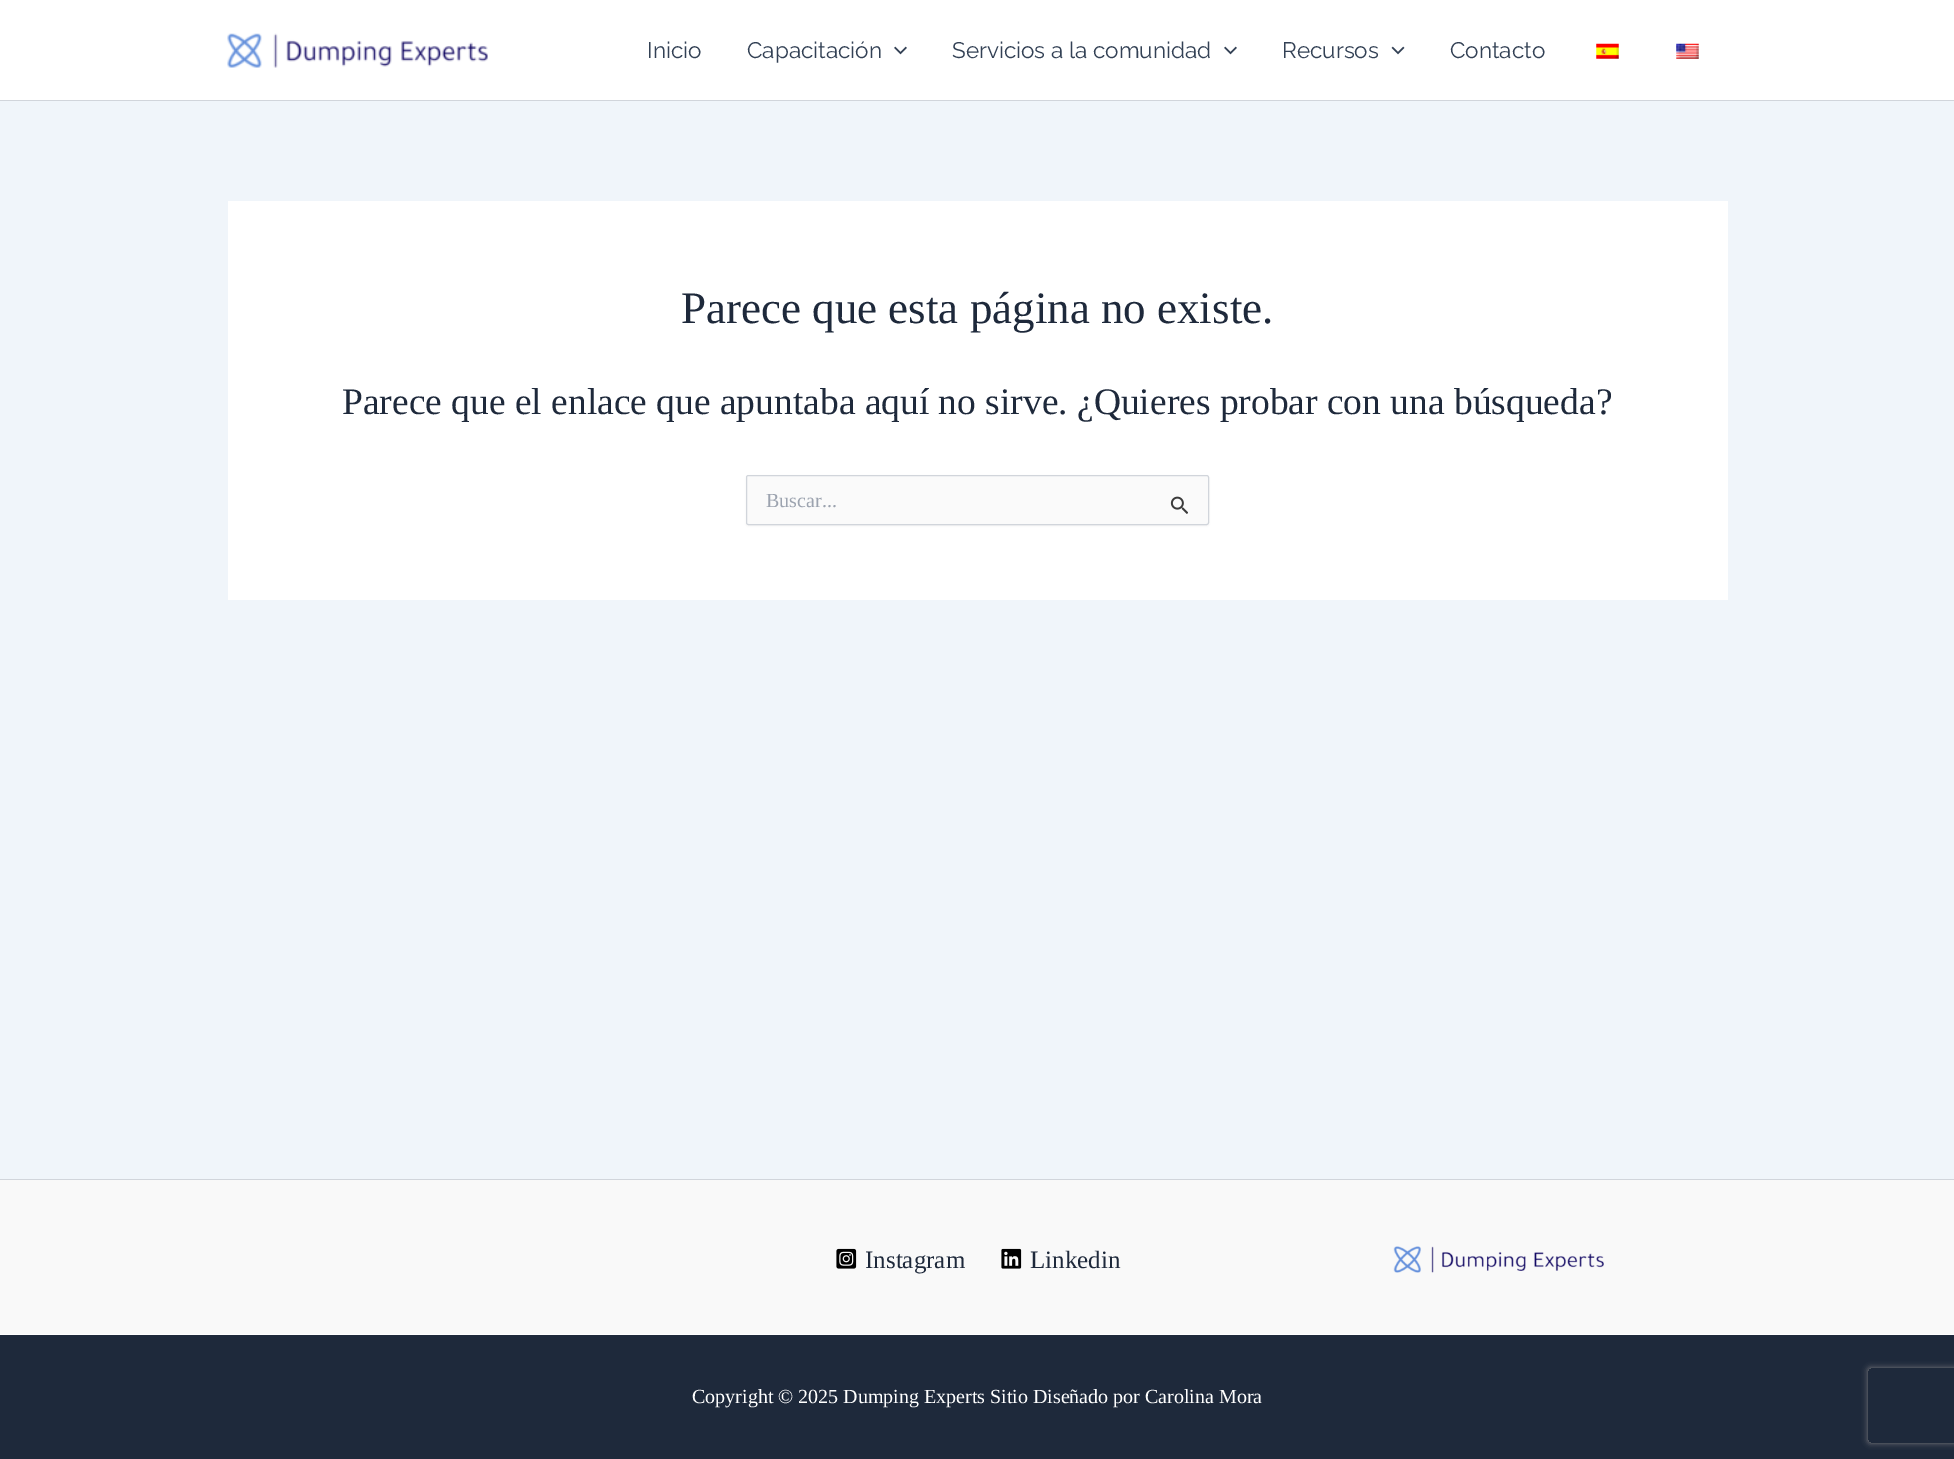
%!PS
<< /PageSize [1954 1459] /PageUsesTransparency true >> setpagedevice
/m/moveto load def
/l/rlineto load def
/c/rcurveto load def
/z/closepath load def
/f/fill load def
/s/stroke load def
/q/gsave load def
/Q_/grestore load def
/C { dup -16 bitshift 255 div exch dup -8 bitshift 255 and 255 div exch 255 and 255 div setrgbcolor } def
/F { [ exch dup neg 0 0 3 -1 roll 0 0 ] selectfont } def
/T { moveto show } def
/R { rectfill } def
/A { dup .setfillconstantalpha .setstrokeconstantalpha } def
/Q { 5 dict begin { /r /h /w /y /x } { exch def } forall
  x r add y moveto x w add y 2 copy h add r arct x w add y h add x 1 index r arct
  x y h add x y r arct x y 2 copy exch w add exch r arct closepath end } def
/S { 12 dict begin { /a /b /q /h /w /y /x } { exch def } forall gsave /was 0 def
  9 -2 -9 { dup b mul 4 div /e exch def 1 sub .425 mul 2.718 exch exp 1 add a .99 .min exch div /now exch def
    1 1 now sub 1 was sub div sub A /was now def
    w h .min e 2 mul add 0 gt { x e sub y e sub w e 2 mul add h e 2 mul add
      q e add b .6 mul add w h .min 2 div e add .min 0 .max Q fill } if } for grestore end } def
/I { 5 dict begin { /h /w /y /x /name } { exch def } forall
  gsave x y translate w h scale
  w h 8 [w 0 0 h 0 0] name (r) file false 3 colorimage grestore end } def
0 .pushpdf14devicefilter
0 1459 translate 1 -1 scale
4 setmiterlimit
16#F0F5FA C
0 0 1954 1459 R
16#FFFFFF C
0 0 1954 100 R
16#D1D5DB C
0 100 1954 1 R
(1.rgb) 227 33 261 35 I
/Raleway-Regular 22.5 F
16#334155 C
(Inicio) 647 58 T
(Capacitación) 747 58 T
(2.rgb) 894 46 13 9 I
(Servicios a la comunidad) 952 58 T
(3.rgb) 1224 46 13 9 I
(Recursos) 1282 58 T
(4.rgb) 1391 46 14 9 I
(Contacto) 1450 58 T
(5.rgb) 1596 43 23 16 I
(6.rgb) 1676 43 23 16 I
16#FFFFFF C
228 201 1500 399 R
/LiberationSerif-Regular 45 F
16#1E293B C
(Parece que esta página no existe.) 681 323 T
/LiberationSerif-Regular 37.5 F
(Parece que el enlace que apuntaba aquí no sirve. ¿Quieres probar con una búsqueda?) 342 414 T
16#000000 C
746 476 463 50 2.5 1 .05 S
16#FAFAFA C
746.5 475.5 462 49 2 Q q f Q_
16#D1D5DB C
s
/LiberationSerif-Regular 20 F
16#9CA3AF C
(Buscar...) 766 507 T
(7.rgb) 1170 496 18 18 I
16#F9F9F9 C
0 1180 1954 154 R
16#D1D5DB C
0 1179 1954 1 R
(8.rgb) 836 1248 21 21 I
/LiberationSerif-Regular 25 F
16#1E293B C
(Instagram) 865 1268 T
(9.rgb) 1001 1248 21 21 I
(Linkedin) 1030 1268 T
(10.rgb) 1393 1246 211 27 I
0 1335 1954 124 R
16#FFFFFF C
0 1334 1954 1 R
/LiberationSerif-Regular 20 F
(Copyright © 2025 Dumping Experts Sitio Diseñado por Carolina Mora) 692 1403 T
q
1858 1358 m 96 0 l 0 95 l -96 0 l z 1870.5 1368 m 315 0 l 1.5 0 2.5 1 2.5 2.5 c 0 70 l 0 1.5 -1 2.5 -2.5 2.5 c -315 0 l -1.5 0 -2.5 -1 -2.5 -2.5 c 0 -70 l 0 -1.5 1 -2.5 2.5 -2.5 c z eoclip newpath
16#808080 C
1868 1368 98 75 2.5 3 1 S
Q_
.poppdf14devicefilter showpage
